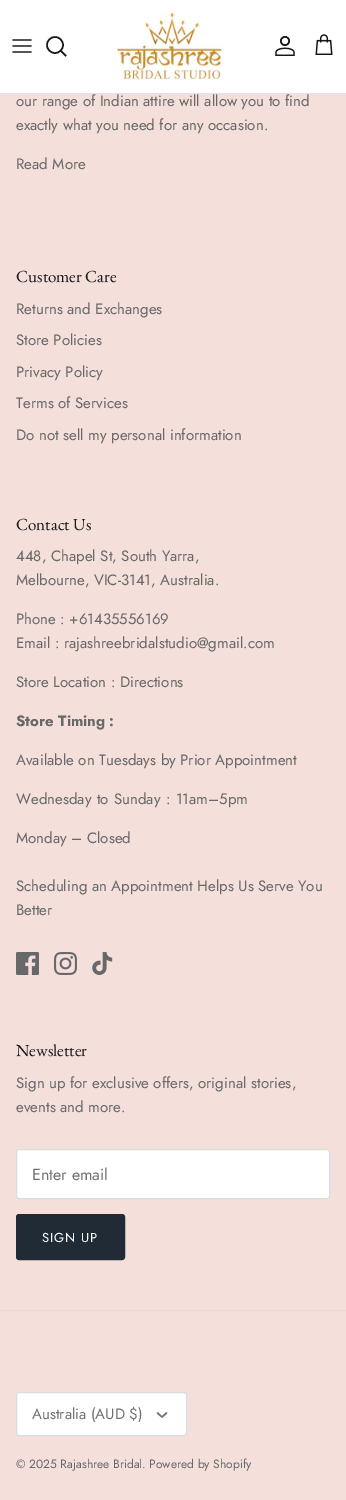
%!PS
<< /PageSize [346 1500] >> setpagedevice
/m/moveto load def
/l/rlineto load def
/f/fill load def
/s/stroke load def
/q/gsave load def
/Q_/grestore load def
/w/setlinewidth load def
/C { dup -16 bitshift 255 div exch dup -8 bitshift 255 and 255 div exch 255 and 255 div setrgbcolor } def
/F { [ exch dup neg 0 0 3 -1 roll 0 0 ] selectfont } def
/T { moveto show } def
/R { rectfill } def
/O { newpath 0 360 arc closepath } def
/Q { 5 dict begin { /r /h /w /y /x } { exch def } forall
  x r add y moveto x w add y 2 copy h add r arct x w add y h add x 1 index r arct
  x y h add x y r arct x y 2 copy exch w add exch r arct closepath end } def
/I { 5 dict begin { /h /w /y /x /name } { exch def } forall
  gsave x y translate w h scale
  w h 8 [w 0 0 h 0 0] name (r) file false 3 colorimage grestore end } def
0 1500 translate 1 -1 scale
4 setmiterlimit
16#F4DFDB C
0 0 346 1500 R
16#FFFFFF C
0 0 346 93 R
16#DFE3E8 C
0 93 346 1 R
(1.rgb) 12 39 20 14 I
16#171717 C
1.5 w
55 45 8 O s
2 setlinecap
61 51 m 4.5 4.5 l s
(2.rgb) 117 10 105 71 I
(3.rgb) 275 36 20 20 I
(4.rgb) 315 34 18 21 I
/Jost-Regular 15 F
16#676869 C
(our range of Indian attire will allow you to find) 16 106 T
(exactly what you need for any occasion.) 16 130 T
(Read More) 16 169 T
/EBGaramond-Regular 17 F
16#171717 C
(Customer Care) 16 282 T
/Jost-Regular 15 F
16#676869 C
(Returns and Exchanges) 16 314 T
(Store Policies) 16 345 T
(Privacy Policy) 16 377 T
(Terms of Services) 16 408 T
(Do not sell my personal information) 16 440 T
/EBGaramond-Regular 17 F
16#171717 C
(Contact Us) 16 530 T
/Jost-Regular 15 F
16#676869 C
(448, Chapel St, South Yarra,) 16 561 T
(Melbourne, VIC-3141, Australia.) 16 585 T
(Phone : +61435556169) 16 624 T
(Email : rajashreebridalstudio@gmail.com) 16 648 T
(Store Location : Directions) 16 687 T
/Jost-Bold 15 F
(Store Timing :) 16 726 T
/Jost-Regular 15 F
(Available on Tuesdays by Prior Appointment) 16 765 T
16 804 m 1 0 32 (Wednesday to Sunday : 11am–5pm) widthshow
(Monday – Closed) 16 843 T
(Scheduling an Appointment Helps Us Serve You) 16 891 T
(Better) 16 915 T
(5.rgb) 16 952 23 23 I
(6.rgb) 54 952 23 23 I
(7.rgb) 92 952 21 23 I
/EBGaramond-Regular 17 F
16#171717 C
(Newsletter) 16 1056 T
/Jost-Regular 15 F
16#676869 C
(Sign up for exclusive offers, original stories,) 16 1088 T
(events and more.) 16 1112 T
16#FFFFFF C
16.5 1149.5 313 49 2.5 Q q f Q_
16#DBDCDC C
1 w
0 setlinecap
s
/Jost-Regular 16 F
16#707173 C
(Enter email) 32 1180 T
16#212B36 C
16.5 1214.5 108 45 2.5 Q q f Q_
s
/Jost-Regular 13 F
16#FFFFFF C
42 1242 m 1 0 (SIGN UP) ashow
16#ECD6D1 C
0 1310 346 1 R
16#FFFFFF C
16.5 1392.5 170 43 2.5 Q q f Q_
16#DBDCDC C
s
/Jost-Regular 15 F
16#707173 C
(Australia \(AUD $\)) 32 1419 T
1.5 w
1 setlinecap
1 setlinejoin
157.5 1413 m 4.5 4 l 4.5 -4 l s
/Jost-Regular 12 F
16#676869 C
(© 2025 Rajashree Bridal. Powered by Shopify) 16 1468 T
showpage
